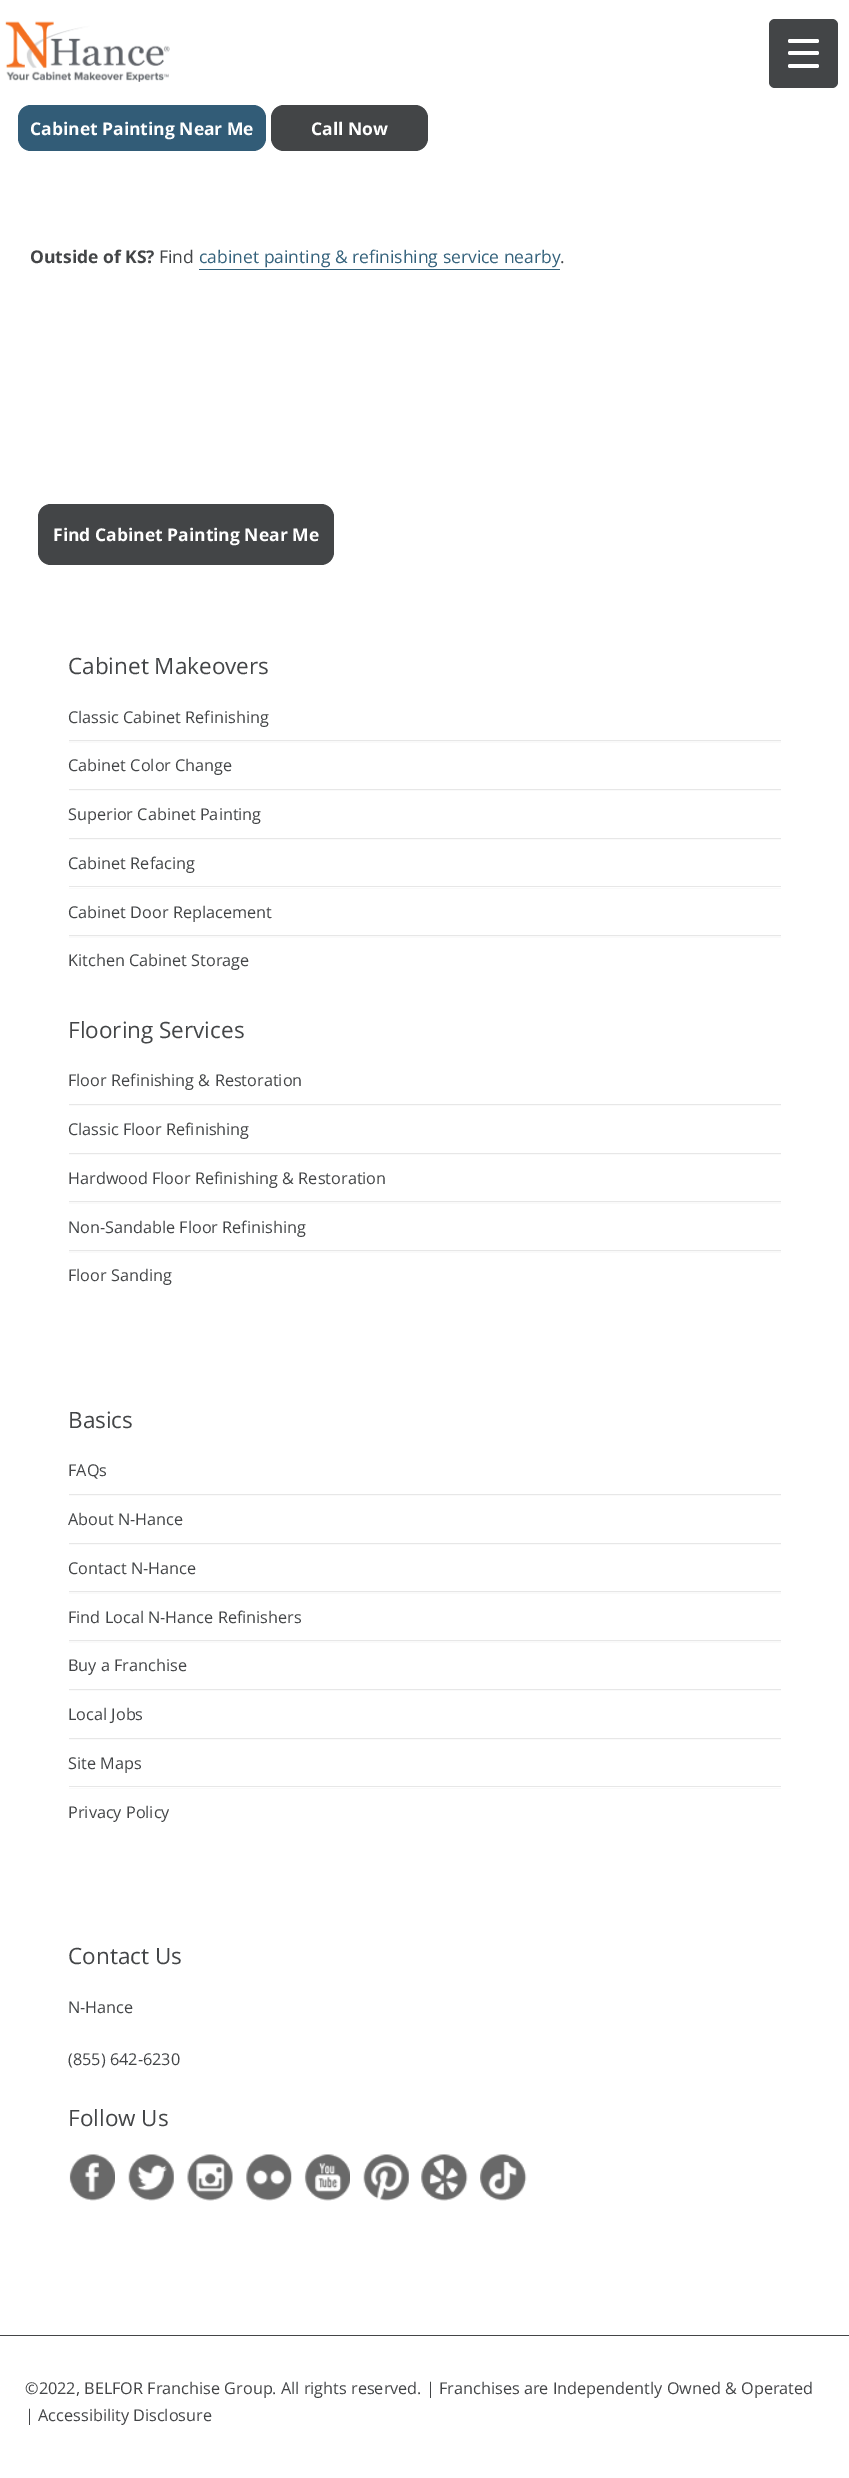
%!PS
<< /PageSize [849 2478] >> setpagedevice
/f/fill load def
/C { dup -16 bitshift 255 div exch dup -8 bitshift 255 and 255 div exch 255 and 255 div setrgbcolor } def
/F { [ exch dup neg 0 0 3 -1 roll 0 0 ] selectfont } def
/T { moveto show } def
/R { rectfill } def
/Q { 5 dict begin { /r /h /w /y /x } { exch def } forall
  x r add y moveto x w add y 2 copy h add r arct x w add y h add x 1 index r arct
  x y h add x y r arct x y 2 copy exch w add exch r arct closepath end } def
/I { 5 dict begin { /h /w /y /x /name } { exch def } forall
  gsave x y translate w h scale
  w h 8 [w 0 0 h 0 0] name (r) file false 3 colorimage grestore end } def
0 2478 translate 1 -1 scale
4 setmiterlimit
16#FFFFFF C
0 0 849 2478 R
16#434547 C
769 19 69 69 6 Q f
16#FFFFFF C
788 51 31 4 2 Q f
788 39 31 4 2 Q f
788 64 31 4 2 Q f
(1.rgb) 5 21 165 61 I
16#325C77 C
18 105 248 46 13 Q f
/OpenSans-Bold 17.5 F
16#FFFFFF C
(Cabinet Painting Near Me) 30 135 T
16#434547 C
271 105 157 46 13 Q f
16#FFFFFF C
(Call Now) 311 135 T
16#434547 C
(Outside of KS?) 30 263 T
/OpenSans-Regular 17.5 F
(Find) 159 263 T
16#34627C C
(cabinet painting & refinishing service nearby) 199 263 T
199 269 361 1 R
16#434547 C
(.) 560 263 T
0 2335 849 1 R
38 504 296 61 13 Q f
/OpenSans-Bold 17.5 F
16#FFFFFF C
(Find Cabinet Painting Near Me) 53 541 T
/OpenSans-Regular 22.5 F
16#434547 C
(Cabinet Makeovers) 68 674 T
16#FAFAFA C
69 741 712 2 R
16#E7E7E7 C
69 740 712 1 R
/OpenSans-Regular 16.25 F
16#434547 C
(Classic Cabinet Refinishing) 68 723 T
16#FAFAFA C
69 790 712 1 R
16#E7E7E7 C
69 789 712 1 R
16#434547 C
(Cabinet Color Change) 68 771 T
16#FAFAFA C
69 839 712 1 R
16#E7E7E7 C
69 838 712 1 R
16#434547 C
(Superior Cabinet Painting) 68 820 T
16#FAFAFA C
69 888 712 1 R
16#E7E7E7 C
69 886 712 1 R
16#434547 C
(Cabinet Refacing) 68 869 T
16#FAFAFA C
69 936 712 2 R
16#E7E7E7 C
69 935 712 1 R
16#434547 C
(Cabinet Door Replacement) 68 918 T
(Kitchen Cabinet Storage) 68 966 T
/OpenSans-Regular 22.5 F
(Flooring Services) 68 1038 T
16#FAFAFA C
69 1105 712 1 R
16#E7E7E7 C
69 1104 712 1 R
/OpenSans-Regular 16.25 F
16#434547 C
(Floor Refinishing & Restoration) 68 1086 T
16#FAFAFA C
69 1154 712 1 R
16#E7E7E7 C
69 1153 712 1 R
16#434547 C
(Classic Floor Refinishing) 68 1135 T
16#FAFAFA C
69 1202 712 2 R
16#E7E7E7 C
69 1201 712 1 R
16#434547 C
(Hardwood Floor Refinishing & Restoration) 68 1184 T
16#FAFAFA C
69 1251 712 2 R
16#E7E7E7 C
69 1250 712 1 R
16#434547 C
(Non-Sandable Floor Refinishing) 68 1233 T
(Floor Sanding) 68 1281 T
/OpenSans-Regular 22.5 F
(Basics) 68 1428 T
16#FAFAFA C
69 1495 712 1 R
16#E7E7E7 C
69 1494 712 1 R
/OpenSans-Regular 16.25 F
16#434547 C
(FAQs) 68 1476 T
16#FAFAFA C
69 1544 712 1 R
16#E7E7E7 C
69 1543 712 1 R
16#434547 C
(About N-Hance) 68 1525 T
16#FAFAFA C
69 1592 712 2 R
16#E7E7E7 C
69 1591 712 1 R
16#434547 C
(Contact N-Hance) 68 1574 T
16#FAFAFA C
69 1641 712 2 R
16#E7E7E7 C
69 1640 712 1 R
16#434547 C
(Find Local N-Hance Refinishers) 68 1623 T
16#FAFAFA C
69 1690 712 1 R
16#E7E7E7 C
69 1689 712 1 R
16#434547 C
(Buy a Franchise) 68 1671 T
16#FAFAFA C
69 1739 712 1 R
16#E7E7E7 C
69 1738 712 1 R
16#434547 C
(Local Jobs) 68 1720 T
16#FAFAFA C
69 1788 712 1 R
16#E7E7E7 C
69 1786 712 1 R
16#434547 C
(Site Maps) 68 1769 T
(Privacy Policy) 68 1818 T
/OpenSans-Regular 22.5 F
(Contact Us) 68 1964 T
/OpenSans-Regular 16.25 F
(N-Hance) 68 2013 T
(\(855\) 642-6230) 68 2065 T
/OpenSans-Regular 22.5 F
(Follow Us) 68 2126 T
(2.rgb) 69 2154 46 47 I
(3.rgb) 128 2154 46 47 I
(4.rgb) 187 2154 46 47 I
(5.rgb) 246 2154 46 47 I
(6.rgb) 304 2154 46 47 I
(7.rgb) 363 2154 46 47 I
(8.rgb) 421 2154 47 47 I
(9.rgb) 480 2154 47 47 I
/OpenSans-Regular 16.25 F
(©2022, BELFOR Franchise Group. All rights reserved. | Franchises are Independently Owned & Operated) 25 2394 T
(| Accessibility Disclosure) 25 2421 T
showpage
